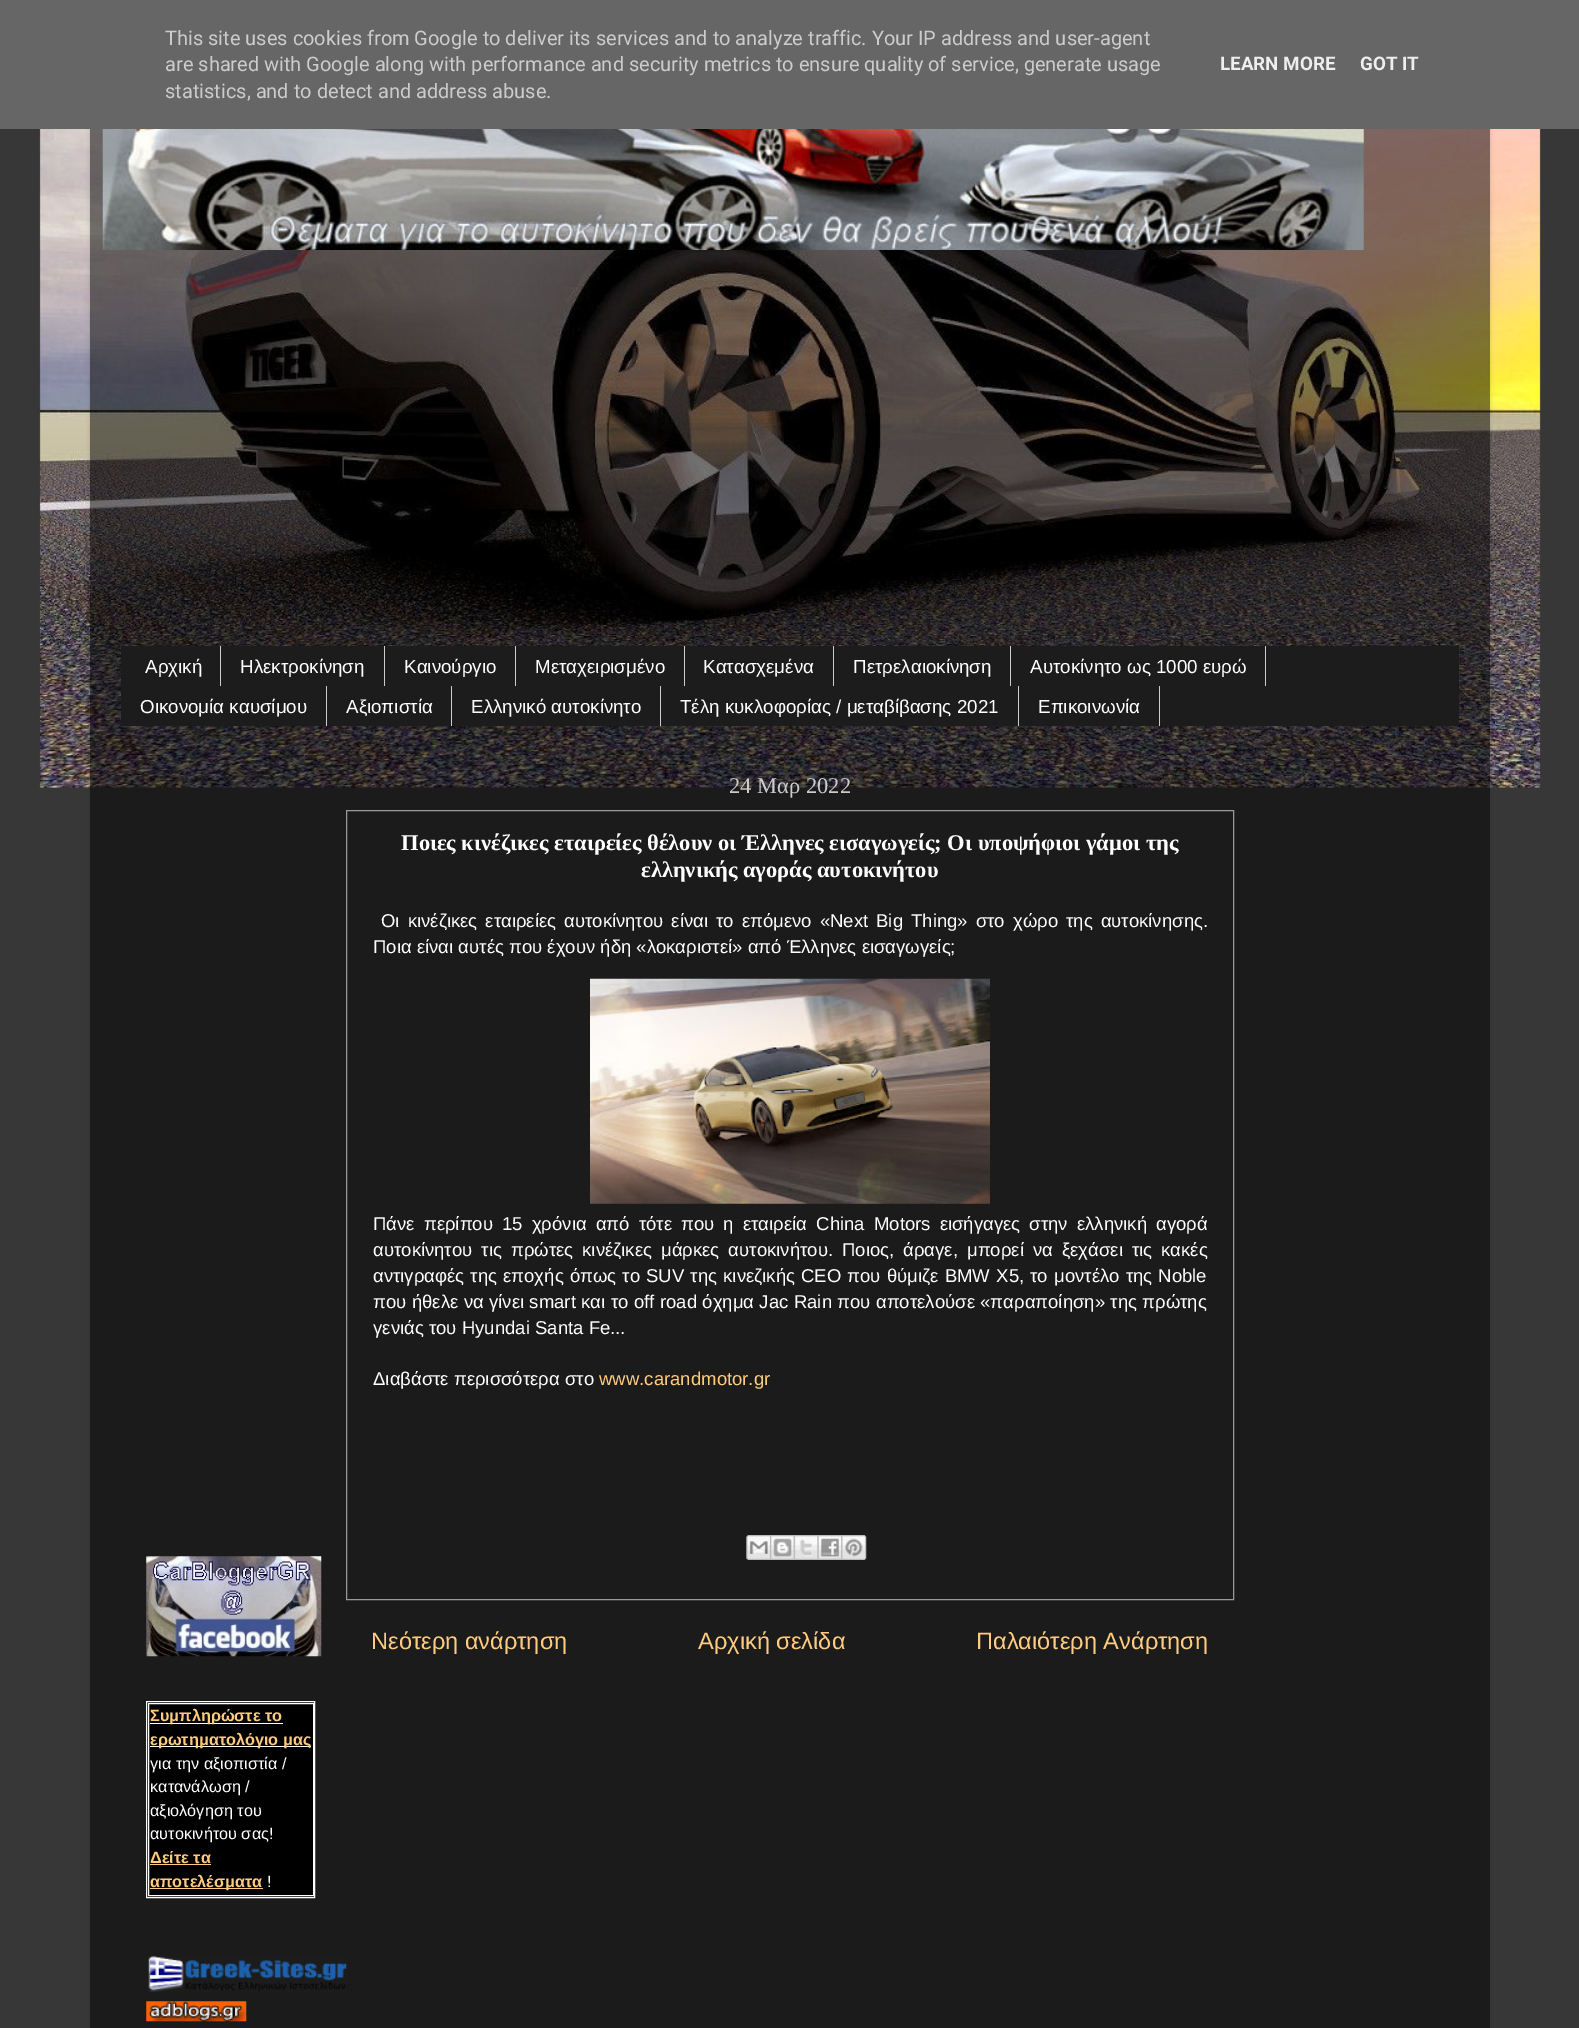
%!PS
<< /PageSize [1579 2028] /PageUsesTransparency true >> setpagedevice
/m/moveto load def
/l/rlineto load def
/z/closepath load def
/f/fill load def
/s/stroke load def
/q/gsave load def
/Q_/grestore load def
/C { dup -16 bitshift 255 div exch dup -8 bitshift 255 and 255 div exch 255 and 255 div setrgbcolor } def
/F { [ exch dup neg 0 0 3 -1 roll 0 0 ] selectfont } def
/T { moveto show } def
/R { rectfill } def
/A { dup .setfillconstantalpha .setstrokeconstantalpha } def
/Q { 5 dict begin { /r /h /w /y /x } { exch def } forall
  x r add y moveto x w add y 2 copy h add r arct x w add y h add x 1 index r arct
  x y h add x y r arct x y 2 copy exch w add exch r arct closepath end } def
/S { 12 dict begin { /a /b /q /h /w /y /x } { exch def } forall gsave /was 0 def
  9 -2 -9 { dup b mul 4 div /e exch def 1 sub .425 mul 2.718 exch exp 1 add a .99 .min exch div /now exch def
    1 1 now sub 1 was sub div sub A /was now def
    w h .min e 2 mul add 0 gt { x e sub y e sub w e 2 mul add h e 2 mul add
      q e add b .6 mul add w h .min 2 div e add .min 0 .max Q fill } if } for grestore end } def
/I { 5 dict begin { /h /w /y /x /name } { exch def } forall
  gsave x y translate w h scale
  w h 8 [w 0 0 h 0 0] name (r) file false 3 colorimage grestore end } def
0 .pushpdf14devicefilter
0 2028 translate 1 -1 scale
4 setmiterlimit
16#373737 C
0 0 1579 2028 R
(1.rgb) 39 129 1502 659 I
q
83 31 m 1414 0 l 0 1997 l -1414 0 l z 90 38 m 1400 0 l 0 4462 l -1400 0 l z eoclip newpath
16#000000 C
90 38 1400 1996 0 2 .15 S
Q_
16#666666 C
0 0 1579 129 R
/Roboto-Regular 20 F
16#CCCCCC C
(This site uses cookies from Google to deliver its services and to analyze traffic. Your IP address and user-agent) 165 45 T
(are shared with Google along with performance and security metrics to ensure quality of service, generate usage) 165 71 T
(statistics, and to detect and address abuse.) 165 98 T
/Roboto-Bold 18.75 F
16#EEEEEE C
(LEARN MORE) 1220 70 T
(GOT IT) 1360 70 T
0.5 A
16#000000 C
90 129 1400 1899 R
1 A
(2.rgb) 102 129 1262 121 I
16#1C1C1C C
121 646 1338 80 R
16#CCCCCC C
220 646 1 40 R
/LiberationSans-Regular 18.75 F
16#FFFFFF C
(Αρχική) 145 673 T
16#CCCCCC C
384 646 1 40 R
16#FFFFFF C
(Ηλεκτροκίνηση) 240 673 T
16#CCCCCC C
515 646 1 40 R
16#FFFFFF C
(Καινούργιο) 404 673 T
16#CCCCCC C
684 646 1 40 R
16#FFFFFF C
(Μεταχειρισμένο) 535 673 T
16#CCCCCC C
833 646 1 40 R
16#FFFFFF C
(Κατασχεμένα) 703 673 T
16#CCCCCC C
1010 646 1 40 R
16#FFFFFF C
(Πετρελαιοκίνηση) 853 673 T
16#CCCCCC C
1265 646 1 40 R
16#FFFFFF C
(Αυτοκίνητο ως 1000 ευρώ) 1030 673 T
16#CCCCCC C
326 686 1 40 R
16#FFFFFF C
(Οικονομία καυσίμου) 140 713 T
16#CCCCCC C
451 686 1 40 R
16#FFFFFF C
(Αξιοπιστία) 346 713 T
16#CCCCCC C
660 686 1 40 R
16#FFFFFF C
(Ελληνικό αυτοκίνητο) 471 713 T
16#CCCCCC C
1018 686 1 40 R
16#FFFFFF C
(Τέλη κυκλοφορίας / μεταβίβασης 2021) 680 713 T
16#CCCCCC C
1159 686 1 40 R
16#FFFFFF C
(Επικοινωνία) 1038 713 T
/LiberationSerif-Regular 22.5 F
16#CCCCCC C
(24 Μαρ 2022) 729 793 T
16#999999 C
346.5 810.5 887 789 rectstroke
/LiberationSerif-Bold 22.5 F
16#FFFFFF C
(Ποιες κινέζικες εταιρείες θέλουν οι Έλληνες εισαγωγείς; Οι υποψήφιοι γάμοι της) 401 850 T
(ελληνικής αγοράς αυτοκινήτου) 641 877 T
/LiberationSans-Regular 18.55 F
381 927 m 2.9 0 32 (Οι κινέζικες εταιρείες αυτοκίνητου είναι το επόμενο «Next Big Thing» στο χώρο της αυτοκίνησης.) widthshow
(Ποια είναι αυτές που έχουν ήδη «λοκαριστεί» από Έλληνες εισαγωγείς;) 373 953 T
(3.rgb) 590 978 400 226 I
373 1230 m 4 0 32 (Πάνε περίπου 15 χρόνια από τότε που η εταιρεία China Motors εισήγαγες στην ελληνική αγορά) widthshow
373 1256 m 3.9 0 32 (αυτοκίνητου τις πρώτες κινέζικες μάρκες αυτοκινήτου. Ποιος, άραγε, μπορεί να ξεχάσει τις κακές) widthshow
373 1282 m 1 0 32 (αντιγραφές της εποχής όπως το SUV της κινεζικής CEO που θύμιζε BMW X5, το μοντέλο της Noble) widthshow
373 1308 m .25 0 32 (που ήθελε να γίνει smart και το off road όχημα Jac Rain που αποτελούσε «παραποίηση» της πρώτης) widthshow
(γενιάς του Hyundai Santa Fe...) 373 1334 T
(Διαβάστε περισσότερα στο) 373 1385 T
16#FFCC7F C
(www.carandmotor.gr) 599 1385 T
(4.rgb) 746 1535 24 25 I
(5.rgb) 770 1535 24 25 I
(6.rgb) 793 1535 25 25 I
(7.rgb) 817 1535 25 25 I
(8.rgb) 841 1535 26 25 I
/LiberationSans-Regular 23.6 F
(Νεότερη ανάρτηση) 371 1649 T
(Αρχική σελίδα) 698 1649 T
(Παλαιότερη Ανάρτηση) 976 1649 T
(9.rgb) 146 1556 176 101 I
16#000000 C
146.5 1701.5 m 168 0 l 0 196 l -168 0 l z q f Q_
16#FFFFFF C
s
148.5 1703.5 165 192 rectstroke
150 1723 133 1 R
/LiberationSans-Bold 16.25 F
16#FFCC7F C
(Συμπληρώστε το) 150 1721 T
16#FFFFFF C
150 1746 161 1 R
16#FFCC7F C
(ερωτηματολόγιο μας) 150 1745 T
/LiberationSans-Regular 16.25 F
16#FFFFFF C
(για την αξιοπιστία /) 150 1769 T
(κατανάλωση /) 150 1792 T
(αξιολόγηση του) 150 1816 T
(αυτοκινήτου σας!) 150 1839 T
/LiberationSans-Bold 16.25 F
16#FFCC7F C
(Δείτε τα) 150 1863 T
150 1864 61 1 R
150 1888 113 1 R
(αποτελέσματα) 150 1887 T
/LiberationSans-Regular 16.25 F
16#FFFFFF C
(!) 267 1887 T
(10.rgb) 148 1956 199 36 I
(11.rgb) 146 2001 101 21 I
.poppdf14devicefilter showpage
